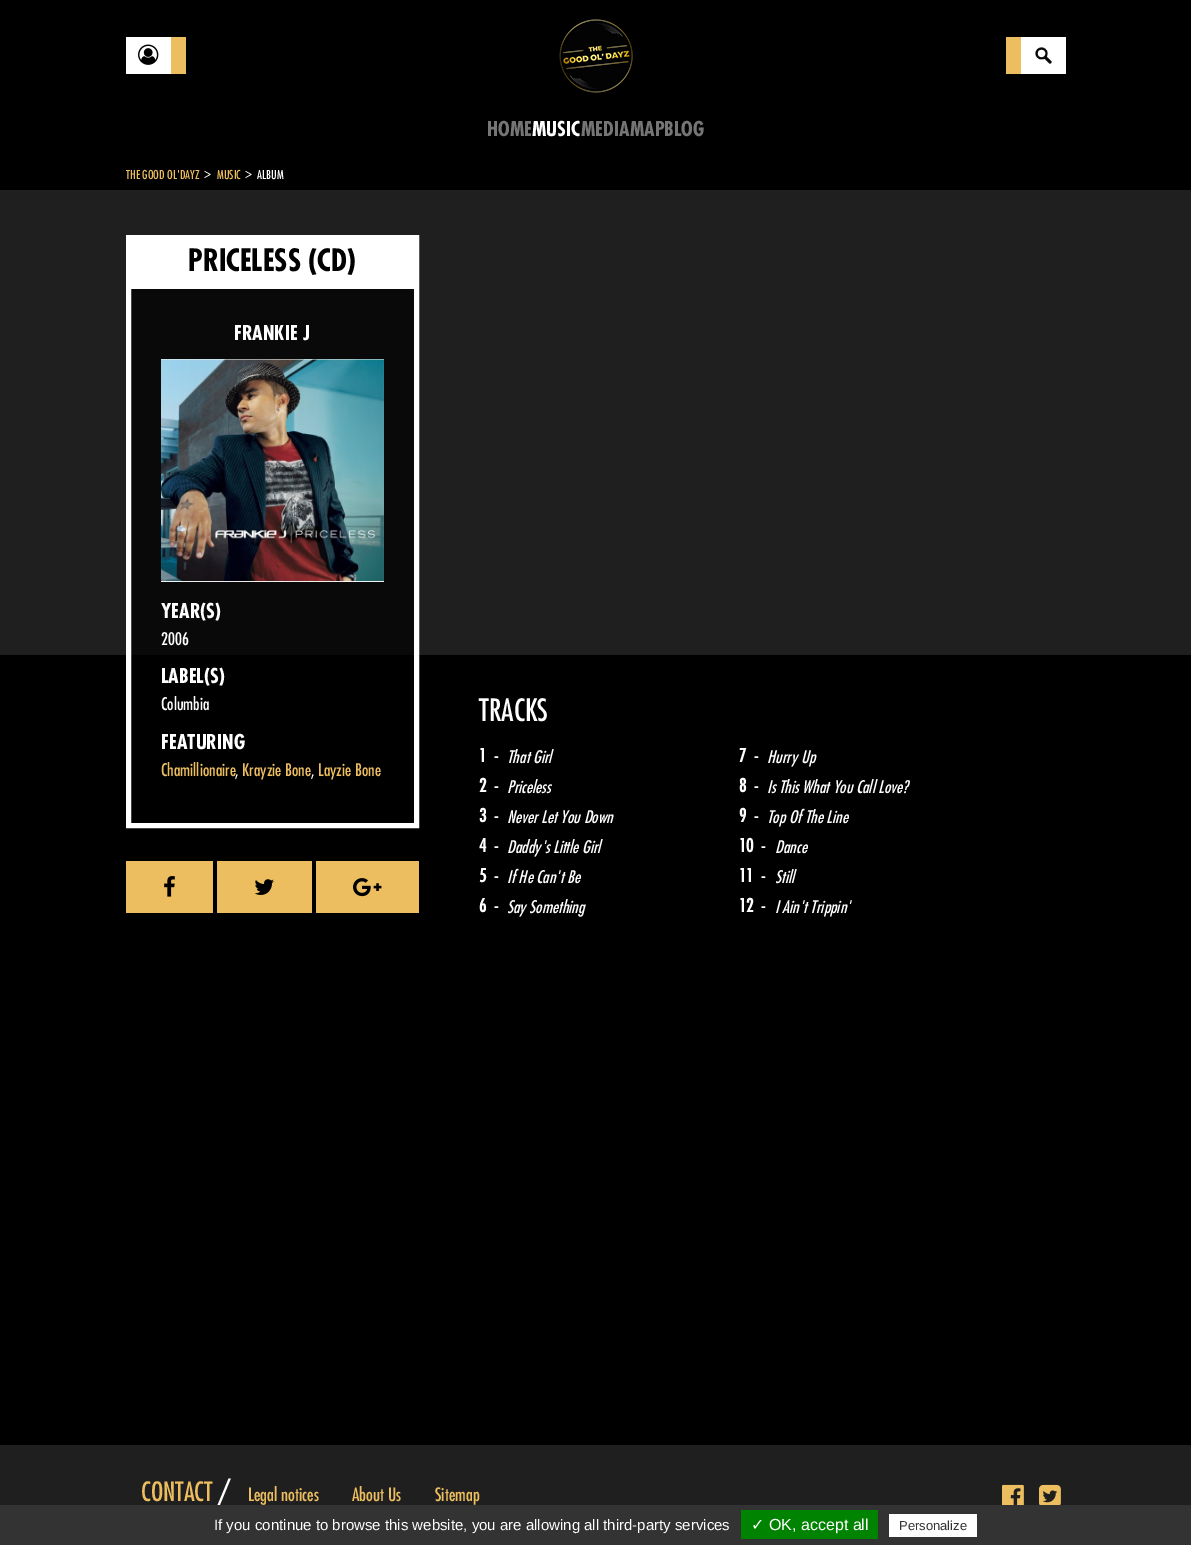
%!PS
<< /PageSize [1191 1545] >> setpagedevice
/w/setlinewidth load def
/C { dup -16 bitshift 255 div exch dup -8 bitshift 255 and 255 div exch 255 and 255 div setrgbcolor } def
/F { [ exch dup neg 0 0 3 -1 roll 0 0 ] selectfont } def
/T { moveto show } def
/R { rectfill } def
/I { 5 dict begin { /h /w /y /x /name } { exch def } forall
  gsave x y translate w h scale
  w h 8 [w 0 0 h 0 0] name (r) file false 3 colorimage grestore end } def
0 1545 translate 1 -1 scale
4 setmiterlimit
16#000000 C
0 0 1191 1545 R
16#FFFFFF C
126 37 45 37 R
(1.rgb) 138 44 21 21 I
16#EDBE5F C
171 37 15 37 R
(2.rgb) 559 19 74 74 I
1006 37 15 37 R
16#FFFFFF C
1021 37 45 37 R
(3.rgb) 1035 47 17 17 I
/Futura-Bold 20 F
16#757575 C
(HOME) 487 136 T
16#FFFFFF C
(MUSIC) 532 136 T
16#757575 C
(MEDIAMAPBLOG) 581 136 T
/Futura-Medium 12 F
16#EDBE5F C
(THE GOOD OL'DAYZ) 126 179 T
/Futura-Medium 14 F
16#FFFFFF C
(>) 204 178 T
/Futura-Medium 12 F
16#EDBE5F C
(MUSIC) 217 179 T
/Futura-Medium 14 F
16#FFFFFF C
(>) 245 178 T
/Futura-Medium 12 F
(ALBUM) 257 179 T
16#1F1F1F C
0 190 1191 465 R
16#090909 C
131 289 283 366 R
16#FFFFFF C
5 w
128.5 237.5 288 588 rectstroke
131 240 283 49 R
/Futura-Bold 30 F
16#000000 C
(PRICELESS \(CD\)) 188 271 T
/Futura-Bold 20 F
16#FFFFFF C
(FRANKIE J) 234 340 T
(4.rgb) 161 359 223 223 I
(YEAR\(S\)) 161 618 T
/Futura-Medium 17 F
(2006) 161 645 T
/Futura-Bold 20 F
(LABEL\(S\)) 161 683 T
/Futura-Medium 17 F
(Columbia) 161 710 T
/Futura-Bold 20 F
(FEATURING) 161 749 T
/Futura-Medium 17 F
16#EDBE5F C
(Chamillionaire) 161 776 T
16#FFFFFF C
(,) 235 776 T
16#EDBE5F C
(Krayzie Bone) 242 776 T
16#FFFFFF C
(,) 311 776 T
16#EDBE5F C
(Layzie Bone) 318 776 T
126 861 87 52 R
(5.rgb) 164 876 11 21 I
217 861 95 52 R
(6.rgb) 254 879 20 16 I
316 861 103 52 R
(7.rgb) 353 878 29 19 I
/Futura-Medium 30 F
16#FFFFFF C
(TRACKS) 479 721 T
/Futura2-Bold 18 F
(1  -) 479 762 T
/Futura-MediumItalic 17 F
(That Girl) 507 763 T
/Futura2-Bold 18 F
(2  -) 479 792 T
/Futura-MediumItalic 17 F
(Priceless) 507 793 T
/Futura2-Bold 18 F
(3  -) 479 822 T
/Futura-MediumItalic 17 F
(Never Let You Down) 507 823 T
/Futura2-Bold 18 F
(4  -) 479 852 T
/Futura-MediumItalic 17 F
(Daddy's Little Girl) 507 853 T
/Futura2-Bold 18 F
(5  -) 479 882 T
/Futura-MediumItalic 17 F
(If He Can't Be) 507 883 T
/Futura2-Bold 18 F
(6  -) 479 912 T
/Futura-MediumItalic 17 F
(Say Something) 507 913 T
/Futura2-Bold 18 F
(7  -) 739 762 T
/Futura-MediumItalic 17 F
(Hurry Up) 767 763 T
/Futura2-Bold 18 F
(8  -) 739 792 T
/Futura-MediumItalic 17 F
(Is This What You Call Love?) 767 793 T
/Futura2-Bold 18 F
(9  -) 739 822 T
/Futura-MediumItalic 17 F
(Top Of The Line) 767 823 T
/Futura2-Bold 18 F
(10  -) 739 852 T
/Futura-MediumItalic 17 F
(Dance) 775 853 T
/Futura2-Bold 18 F
(11  -) 739 882 T
/Futura-MediumItalic 17 F
(Still) 775 883 T
/Futura2-Bold 18 F
(12  -) 739 912 T
/Futura-MediumItalic 17 F
(I Ain't Trippin') 775 913 T
16#1F1F1F C
0 1445 1191 60 R
/Futura-Medium 26 F
16#EDBE5F C
(CONTACT) 141 1501 T
/Futura-Medium 32 F
16#FFFFFF C
(/) 217 1505 T
/Futura-Medium 18 F
16#EDBE5F C
(Legal notices) 248 1501 T
(About Us) 352 1501 T
(Sitemap) 435 1501 T
(8.rgb) 1002 1484 22 21 I
(9.rgb) 1039 1484 22 21 I
16#333333 C
0 1505 1191 40 R
/LiberationSans-Regular 15 F
16#FFFFFF C
(If you continue to browse this website, you are allowing all third-party services) 214 1530 T
16#008300 C
741 1510 137 29 R
/DejaVuSans-Regular 16 F
16#FFFFFF C
(✓) 751 1530 T
/LiberationSans-Regular 16 F
(OK, accept all) 769 1530 T
889 1514 88 23 R
/LiberationSans-Regular 13 F
16#333333 C
(Personalize) 899 1530 T
showpage
